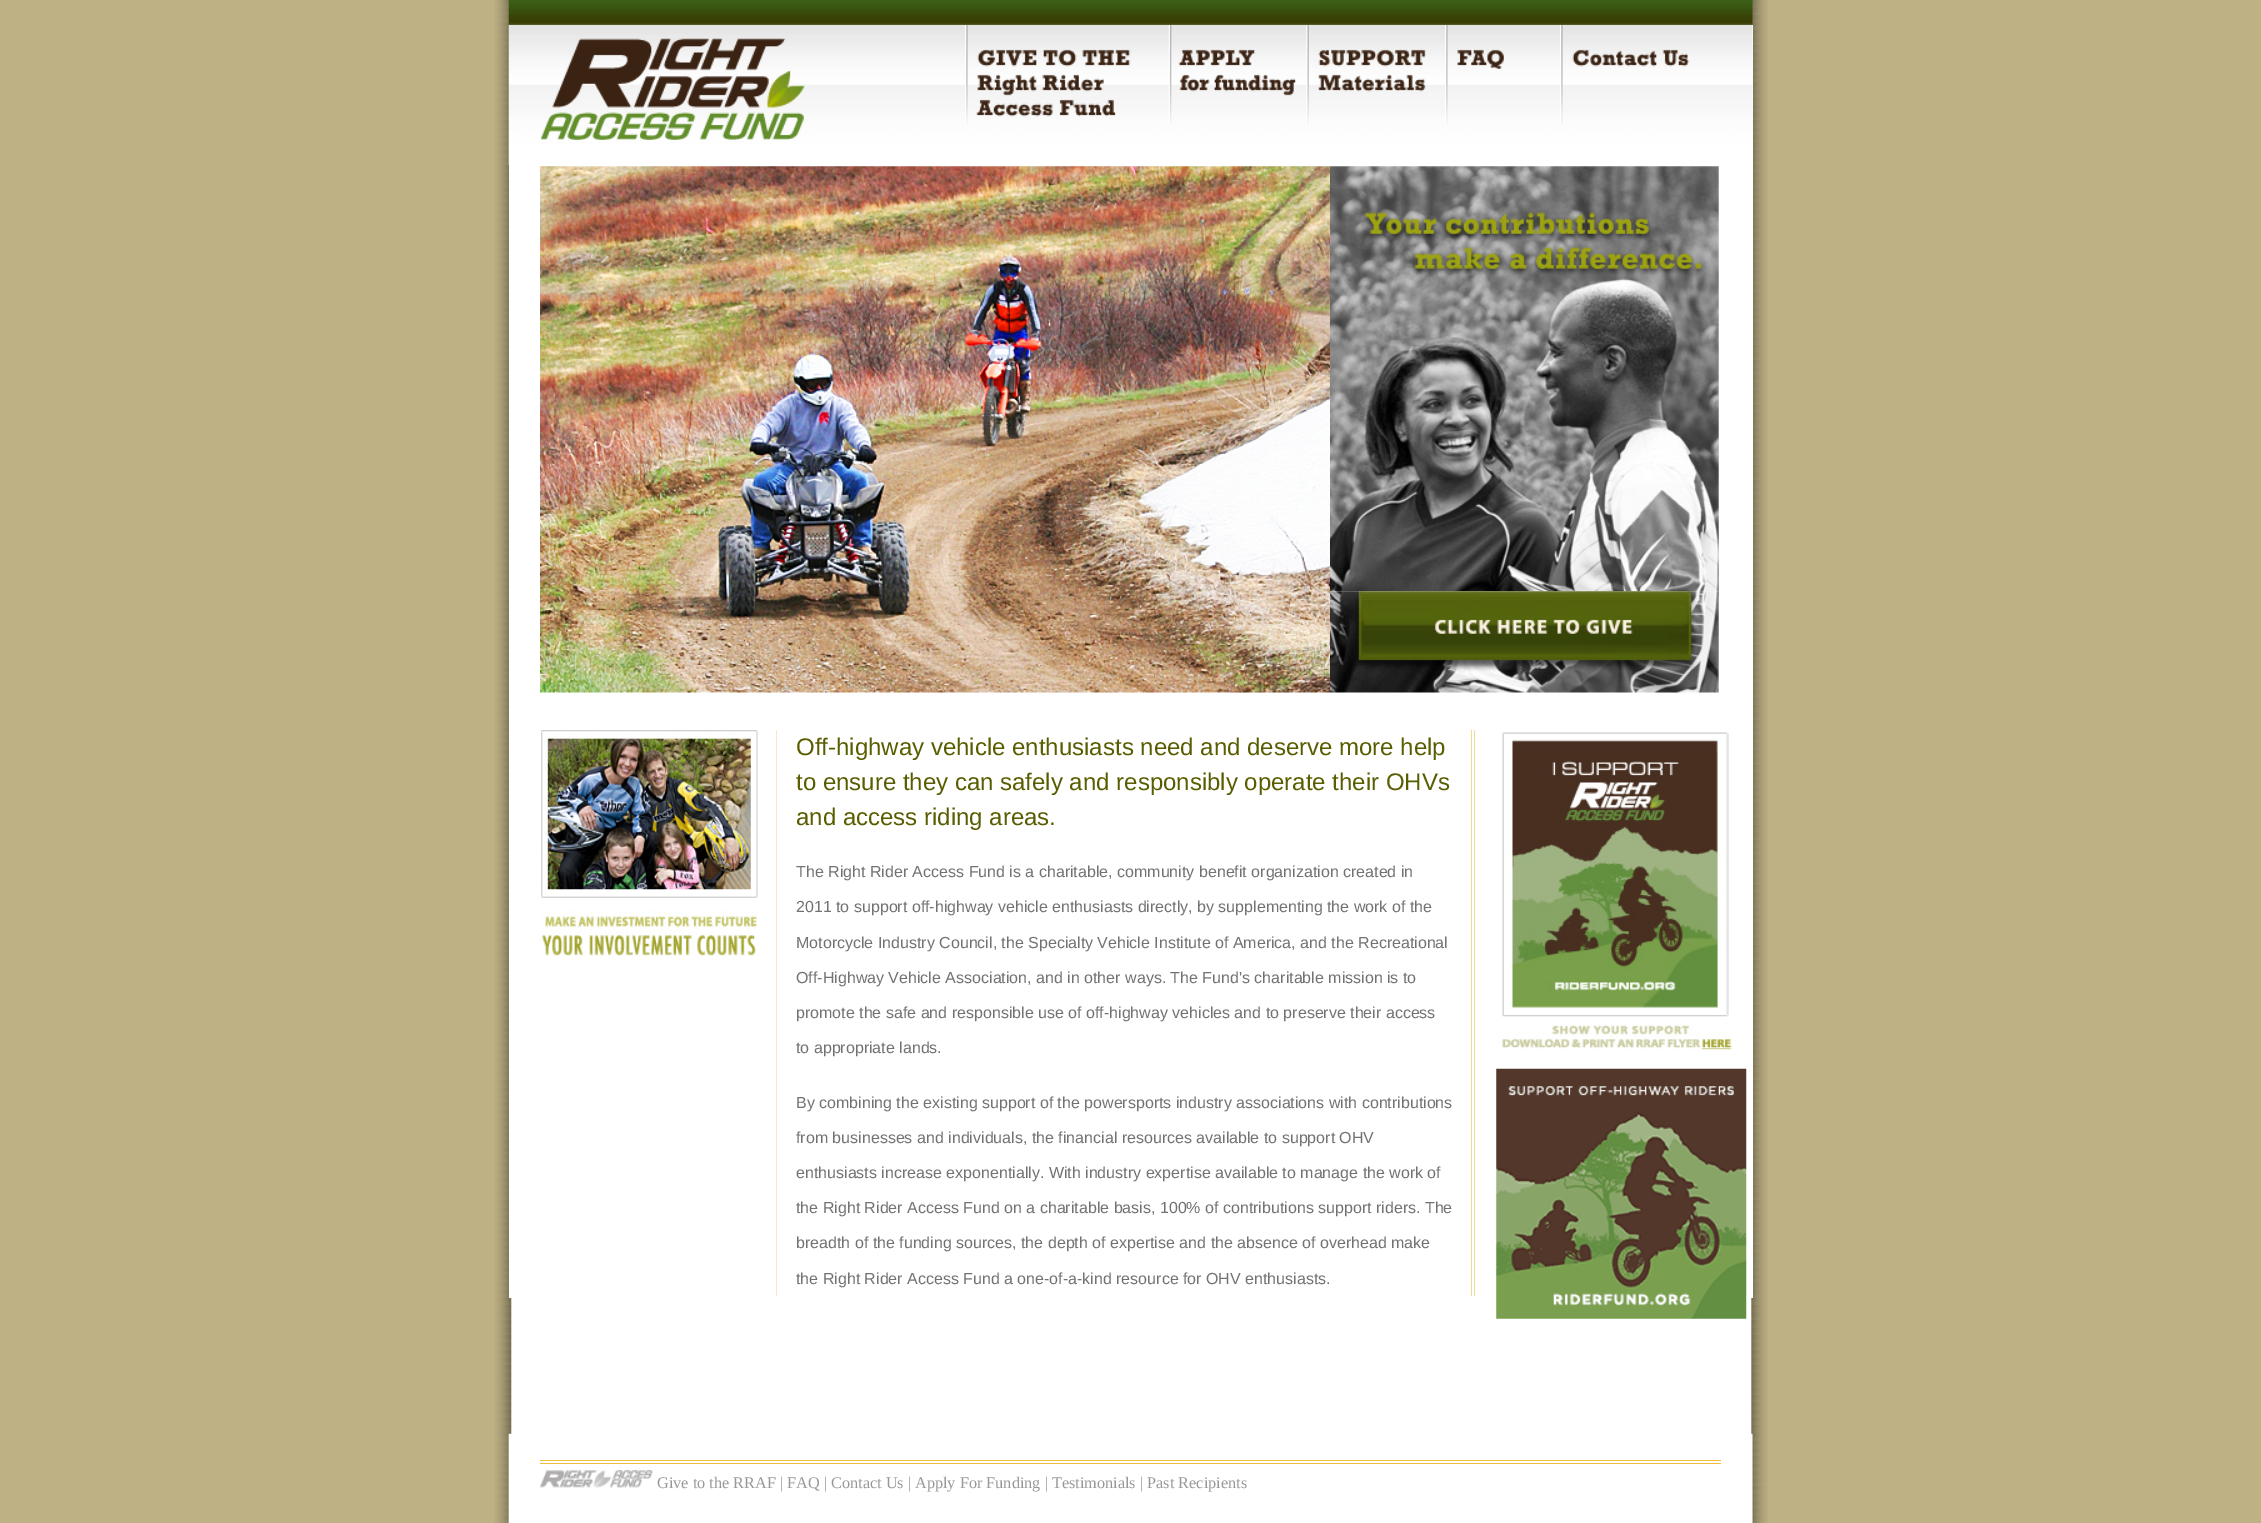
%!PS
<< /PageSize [2261 1523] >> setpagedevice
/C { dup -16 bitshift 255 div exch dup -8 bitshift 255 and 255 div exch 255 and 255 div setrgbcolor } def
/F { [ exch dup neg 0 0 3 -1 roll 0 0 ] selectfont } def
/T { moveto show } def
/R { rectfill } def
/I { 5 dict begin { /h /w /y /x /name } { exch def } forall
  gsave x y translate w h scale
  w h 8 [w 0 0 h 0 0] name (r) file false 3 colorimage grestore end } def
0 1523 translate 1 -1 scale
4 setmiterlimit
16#BEB184 C
0 0 2261 1523 R
(1.rgb) 494 0 1274 1434 I
(2.rgb) 508 0 1245 25 I
16#FFFFFF C
509 25 1244 1273 R
(3.rgb) 508 25 1245 140 I
(4.rgb) 540 38 265 102 I
(5.rgb) 965 25 166 99 I
(6.rgb) 1168 25 128 100 I
(7.rgb) 1306 25 120 100 I
(8.rgb) 1445 25 59 99 I
(9.rgb) 1560 25 129 99 I
(10.rgb) 540 166 790 527 I
(11.rgb) 1330 166 389 426 I
(12.rgb) 1330 591 389 102 I
(13.rgb) 541 730 217 226 I
16#F6D991 C
1471 730 1 566 R
1474 730 1 566 R
16#FAE9C0 C
776 730 1 566 R
/LiberationSans-Regular 24 F
16#595D00 C
(Off-highway vehicle enthusiasts need and deserve more help) 796 755 T
(to ensure they can safely and responsibly operate their OHVs) 796 790 T
(and access riding areas.) 796 825 T
/LiberationSans-Regular 16 F
16#727272 C
(The Right Rider Access Fund is a charitable, community benefit organization created in) 796 877 T
(2011 to support off-highway vehicle enthusiasts directly, by supplementing the work of the) 796 912 T
(Motorcycle Industry Council, the Specialty Vehicle Institute of America, and the Recreational) 796 948 T
(Off-Highway Vehicle Association, and in other ways. The Fund's charitable mission is to) 796 983 T
(promote the safe and responsible use of off-highway vehicles and to preserve their access) 796 1018 T
(to appropriate lands.) 796 1053 T
(By combining the existing support of the powersports industry associations with contributions) 796 1108 T
(from businesses and individuals, the financial resources available to support OHV) 796 1143 T
(enthusiasts increase exponentially. With industry expertise available to manage the work of) 796 1178 T
(the Right Rider Access Fund on a charitable basis, 100% of contributions support riders. The) 796 1213 T
(breadth of the funding sources, the depth of expertise and the absence of overhead make) 796 1248 T
(the Right Rider Access Fund a one-of-a-kind resource for OHV enthusiasts.) 796 1284 T
(14.rgb) 1502 732 227 285 I
(15.rgb) 1502 1024 230 26 I
(16.rgb) 1496 1068 251 251 I
(17.rgb) 494 1433 1274 90 I
16#F2BD3D C
540 1460 1181 1 R
540 1463 1181 1 R
(18.rgb) 540 1470 113 18 I
/LiberationSerif-Regular 16.25 F
16#989898 C
(Give to the RRAF | FAQ | Contact Us | Apply For Funding | Testimonials | Past Recipients) 657 1488 T
showpage
